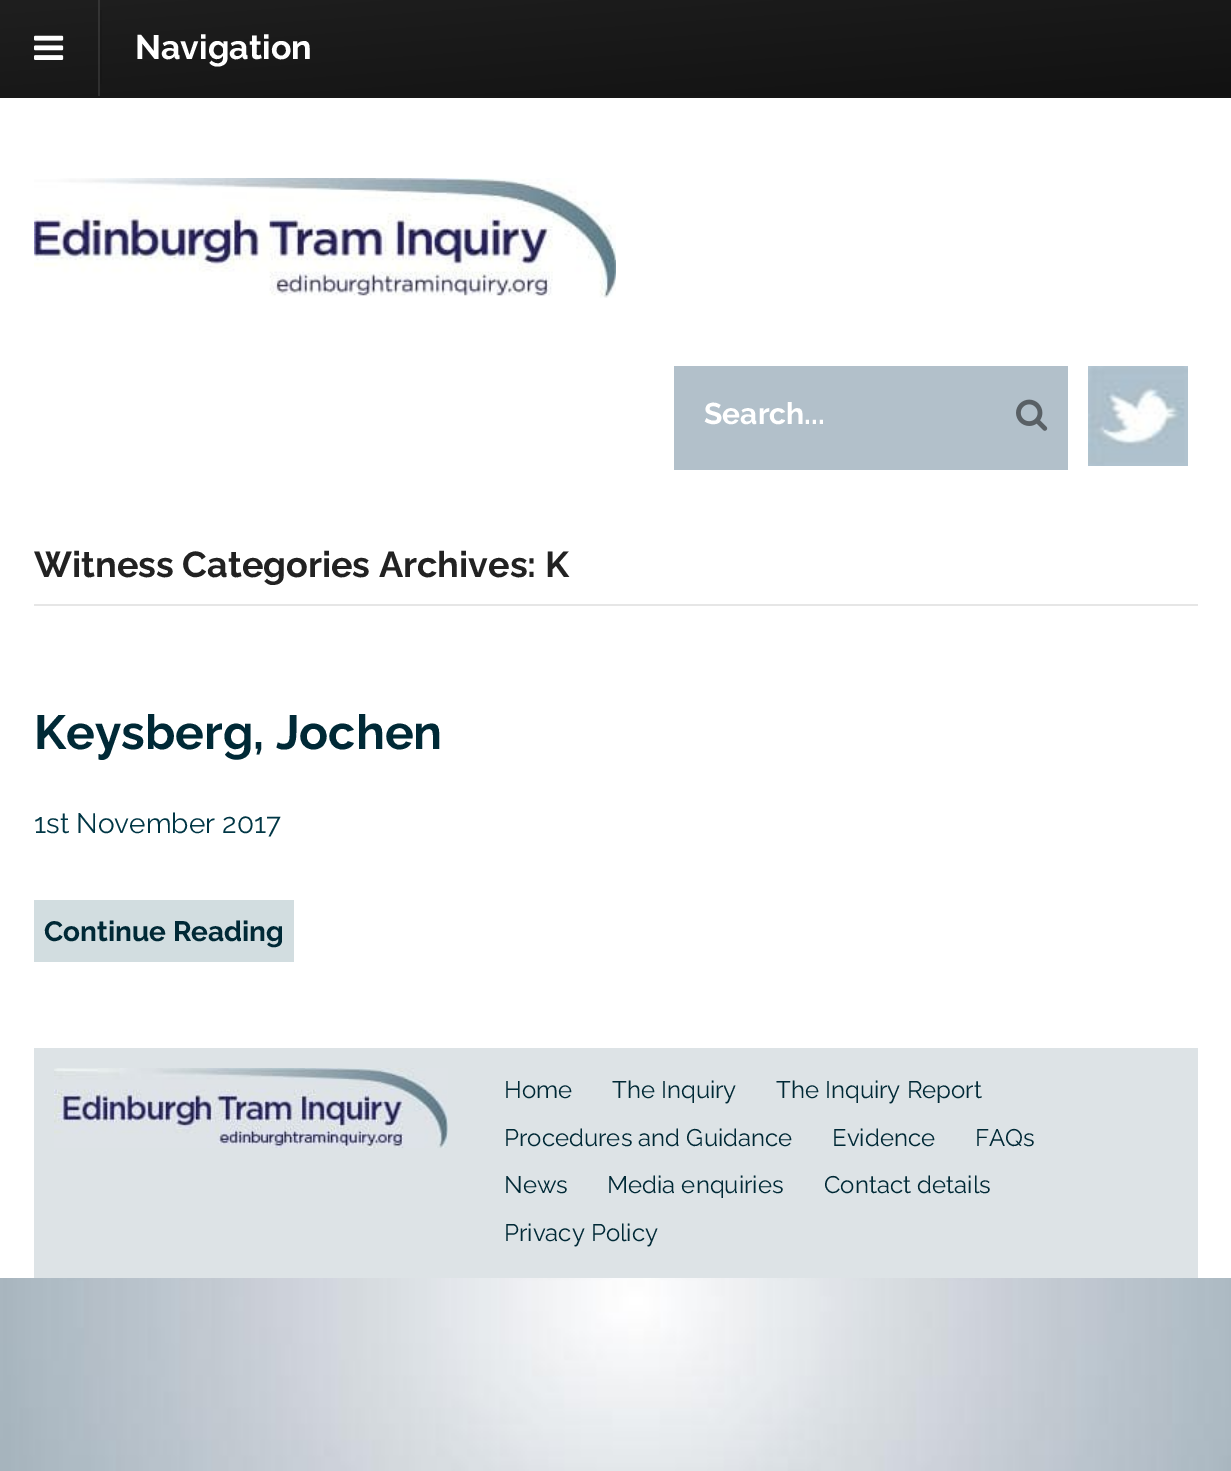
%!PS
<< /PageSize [1231 1471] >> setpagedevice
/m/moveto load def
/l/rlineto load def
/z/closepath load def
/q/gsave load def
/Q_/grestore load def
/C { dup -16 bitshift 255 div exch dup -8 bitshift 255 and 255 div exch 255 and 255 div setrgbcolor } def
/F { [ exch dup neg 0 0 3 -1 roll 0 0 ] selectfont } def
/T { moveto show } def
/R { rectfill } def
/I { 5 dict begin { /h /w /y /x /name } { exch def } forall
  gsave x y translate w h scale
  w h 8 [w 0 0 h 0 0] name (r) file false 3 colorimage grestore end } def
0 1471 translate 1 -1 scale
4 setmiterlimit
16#FFFFFF C
0 0 1231 1471 R
(1.rgb) 0 1278 1231 193 I
q 0 0 m 1231 0 l 0 96 l -1231 0 l z clip newpath
<< /ShadingType 2 /ColorSpace /DeviceRGB /Coords [609 -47 623 143] /Extend [true true] /Function << /FunctionType 2 /Domain [0 1] /C0 [.122 .122 .122] /C1 [.071 .071 .071] /N 1 >> >> shfill Q_
q 100 10 m 2 0 l 0 74 l -2 0 l z clip newpath
<< /ShadingType 2 /ColorSpace /DeviceRGB /Coords [609 -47 623 143] /Extend [true true] /Function << /FunctionType 2 /Domain [0 1] /C0 [.11 .11 .11] /C1 [.063 .063 .063] /N 1 >> >> shfill Q_
q 98 0 m 2 0 l 0 96 l -2 0 l z clip newpath
<< /ShadingType 2 /ColorSpace /DeviceRGB /Coords [609 -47 623 143] /Extend [true true] /Function << /FunctionType 2 /Domain [0 1] /C0 [.208 .208 .208] /C1 [.165 .165 .165] /N 1 >> >> shfill Q_
q 0 96 m 1231 0 l 0 2 l -1231 0 l z clip newpath
<< /ShadingType 2 /ColorSpace /DeviceRGB /Coords [609 49 623 239] /Extend [true true] /Function << /FunctionType 2 /Domain [0 1] /C0 [.098 .098 .098] /C1 [.055 .055 .055] /N 1 >> >> shfill Q_
(2.rgb) 34 35 30 25 I
/Raleway-Bold 34 F
(Navigation) 135 59 T
(3.rgb) 34 178 582 120 I
16#B2C0CA C
674 366 394 104 R
/Raleway-Bold 30 F
16#FFFFFF C
(Search...) 704 424 T
(4.rgb) 1016 399 32 32 I
(5.rgb) 1088 366 100 100 I
16#E6E6E6 C
34 604 1164 2 R
/Raleway-Bold 36 F
16#222222 C
(Witness Categories Archives: K) 34 577 T
/Raleway-Bold 48 F
16#002936 C
(Keysberg, Jochen) 34 749 T
/Raleway-Regular 28 F
16#003645 C
(1st November 2017) 34 833 T
16#D2DDE0 C
34 900 260 62 R
/Raleway-Bold 28 F
16#002936 C
(Continue Reading) 44 941 T
16#DDE3E6 C
34 1048 1164 230 R
(6.rgb) 54 1068 394 80 I
/Raleway-Regular 24 F
16#002936 C
(Home) 504 1098 T
(The Inquiry) 612 1098 T
(The Inquiry Report) 776 1098 T
(Procedures and Guidance) 504 1146 T
(Evidence) 832 1146 T
(FAQs) 975 1146 T
(News) 504 1193 T
(Media enquiries) 607 1193 T
(Contact details) 824 1193 T
(Privacy Policy) 504 1241 T
showpage
